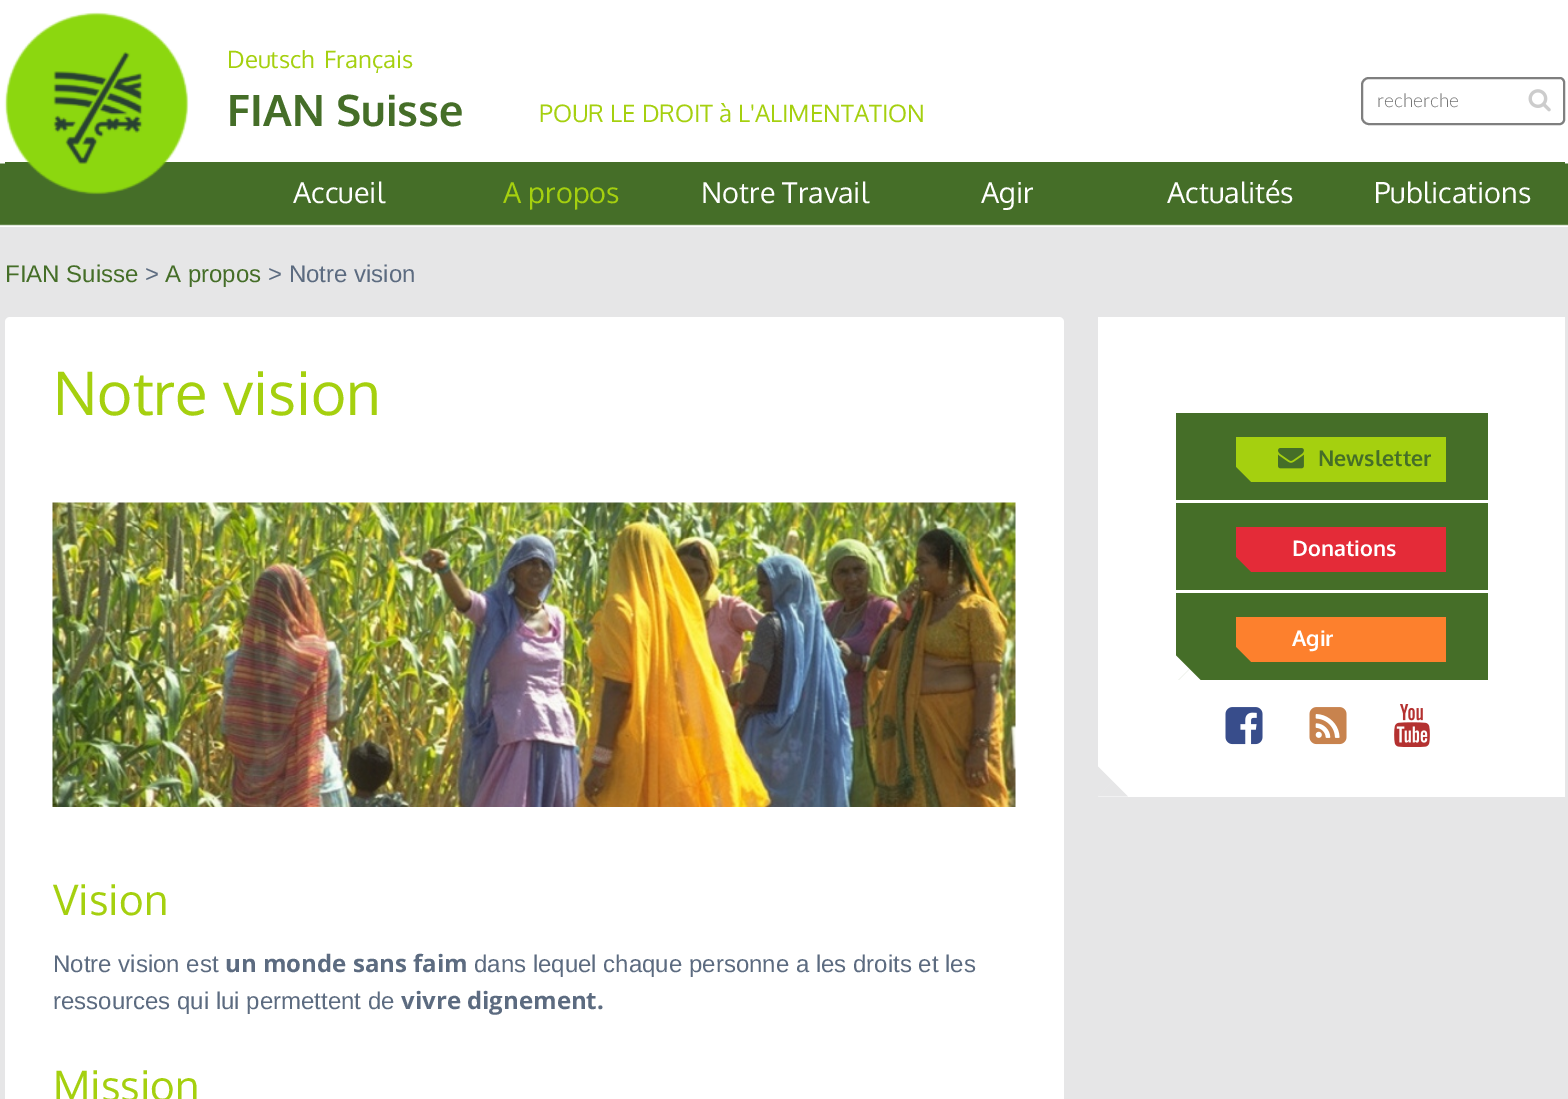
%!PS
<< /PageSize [1568 1099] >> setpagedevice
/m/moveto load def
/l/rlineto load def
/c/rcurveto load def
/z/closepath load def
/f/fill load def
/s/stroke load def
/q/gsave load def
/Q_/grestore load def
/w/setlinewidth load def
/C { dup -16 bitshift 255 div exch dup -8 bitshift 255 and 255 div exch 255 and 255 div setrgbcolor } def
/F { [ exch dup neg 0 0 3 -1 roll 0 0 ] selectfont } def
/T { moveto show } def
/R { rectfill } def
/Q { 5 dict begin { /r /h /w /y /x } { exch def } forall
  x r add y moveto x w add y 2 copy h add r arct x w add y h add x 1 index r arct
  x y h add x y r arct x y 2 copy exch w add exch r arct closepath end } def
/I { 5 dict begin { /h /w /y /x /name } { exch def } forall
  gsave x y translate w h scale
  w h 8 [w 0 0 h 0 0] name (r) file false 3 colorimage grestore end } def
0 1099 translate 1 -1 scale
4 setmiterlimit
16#E6E6E7 C
0 0 1568 1099 R
16#FFFFFF C
0 0 1568 227 R
(1.rgb) 0 163 1568 63 I
16#456E28 C
5 162 1560 2 R
(2.rgb) 4 12 185 183 I
/Oxygen-Regular 24 F
16#A5D00F C
(Deutsch) 227 68 T
(Français) 324 68 T
/Oxygen-Bold 43.25 F
16#456E28 C
(FIAN Suisse) 227 126 T
/Oxygen-Regular 24 F
16#A5D00F C
(POUR LE DROIT à L'ALIMENTATION) 539 122 T
16#7F7F7F C
2 w
1369 78 m 191 0 l 2 0 4 2 4 4 c 0 38 l 0 2 -2 4 -4 4 c -191 0 l -4 0 -7 -3 -7 -7 c 0 -32 l 0 -4 3 -7 7 -7 c z s
/Lato-Light 19 F
16#757575 C
(recherche) 1377 107 T
(3.rgb) 1528 89 23 23 I
/Oxygen-Regular 28.75 F
16#FFFFFF C
(Accueil) 293 203 T
16#A5D00F C
(A propos) 503 203 T
16#FFFFFF C
(Notre Travail) 701 203 T
(Agir) 981 203 T
(Actualités) 1167 203 T
(Publications) 1374 203 T
/LiberationSans-Regular 24 F
16#456E28 C
(FIAN Suisse) 5 282 T
16#5C6B80 C
(>) 145 282 T
16#456E28 C
(A propos) 165 282 T
16#5C6B80 C
(> Notre vision) 268 282 T
16#FFFFFF C
5 317 1059 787 5 Q f
/Oxygen-Regular 60 F
16#A5D00F C
(Notre vision) 53 415 T
(4.rgb) 52 502 964 305 I
/Oxygen-Regular 42 F
(Vision) 53 915 T
/LiberationSans-Regular 24 F
16#5C6B80 C
(Notre vision est) 53 972 T
/OpenSans-Bold 24 F
(un monde sans faim) 225 972 T
/LiberationSans-Regular 24 F
(dans lequel chaque personne a les droits et les) 474 972 T
(ressources qui lui permettent de) 53 1009 T
/OpenSans-Bold 24 F
(vivre dignement.) 401 1009 T
/Oxygen-Regular 42 F
16#A5D00F C
(Mission) 53 1101 T
16#FFFFFF C
1098 317 467 480 R
16#456E28 C
1176 413 312 87 R
16#A5D00F C
1236 437 210 45 R
(5.rgb) 1278 448 26 21 I
/Oxygen-Bold 21.5 F
16#456E28 C
(Newsletter) 1318 466 T
q
1236 437 210 45 rectclip
1251 482 m -45 0 l 22 -23 l z f
Q_
1176 503 312 87 R
16#E42B38 C
1236 527 210 45 R
16#FFFFFF C
(Donations) 1292 556 T
q
1236 527 210 45 rectclip
16#456E28 C
1251 572 m -45 0 l 22 -23 l z f
Q_
16#456E28 C
1176 593 312 87 R
16#FD802D C
1236 617 210 45 R
16#FFFFFF C
(Agir) 1292 646 T
q
1236 617 210 45 rectclip
16#456E28 C
1251 662 m -45 0 l 22 -23 l z f
Q_
1204.5 684 m -30 0 l 15 -15 l z f
1174.5 684 m 0 -30 l 15 15 l z f
(6.rgb) 1225 707 38 38 I
(7.rgb) 1309 707 38 38 I
(8.rgb) 1394 704 36 43 I
16#E6E6E7 C
1128 796.5 m -30 0 l 15 -15 l z f
1098 796.5 m 0 -30 l 15 15 l z f
showpage
